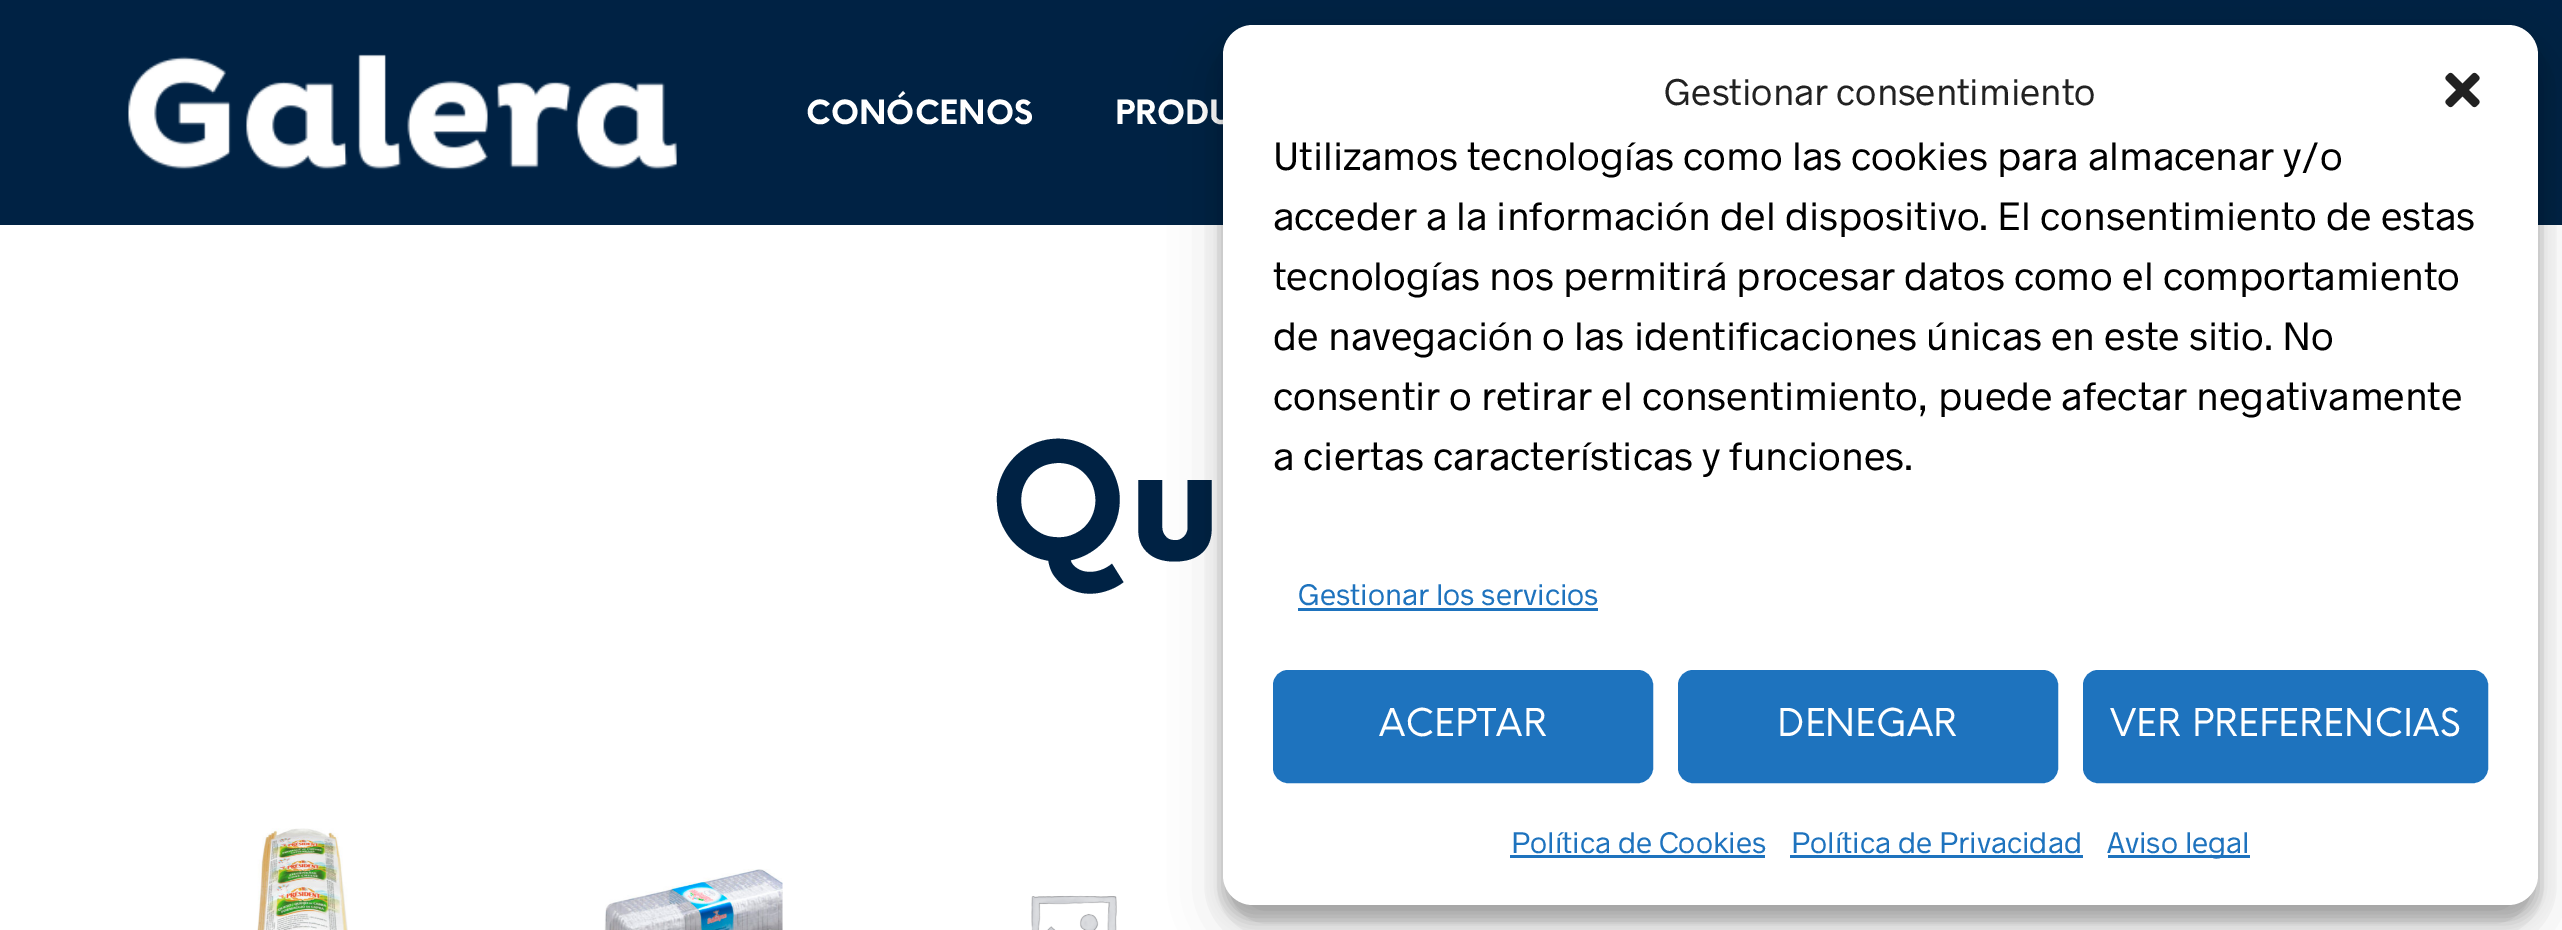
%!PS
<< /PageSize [2562 930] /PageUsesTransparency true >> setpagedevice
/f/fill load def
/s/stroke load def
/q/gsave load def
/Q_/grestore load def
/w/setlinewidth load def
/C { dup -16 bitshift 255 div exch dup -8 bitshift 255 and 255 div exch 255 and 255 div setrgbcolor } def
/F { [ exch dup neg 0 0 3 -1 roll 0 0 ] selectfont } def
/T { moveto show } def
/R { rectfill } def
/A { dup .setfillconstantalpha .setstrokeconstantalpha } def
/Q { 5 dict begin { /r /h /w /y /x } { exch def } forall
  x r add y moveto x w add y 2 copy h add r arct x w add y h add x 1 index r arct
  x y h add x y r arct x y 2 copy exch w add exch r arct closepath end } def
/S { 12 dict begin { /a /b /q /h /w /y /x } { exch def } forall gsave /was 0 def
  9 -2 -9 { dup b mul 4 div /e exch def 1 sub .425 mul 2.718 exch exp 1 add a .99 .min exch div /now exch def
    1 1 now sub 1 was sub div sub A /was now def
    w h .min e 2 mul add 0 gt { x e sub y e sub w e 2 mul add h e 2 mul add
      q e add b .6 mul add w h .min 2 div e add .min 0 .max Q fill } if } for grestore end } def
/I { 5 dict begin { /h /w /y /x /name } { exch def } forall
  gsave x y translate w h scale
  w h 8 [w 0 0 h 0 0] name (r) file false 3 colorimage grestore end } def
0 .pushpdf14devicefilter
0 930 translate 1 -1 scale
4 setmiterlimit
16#FFFFFF C
0 0 2562 930 R
16#002244 C
0 0 2562 225 R
(1.rgb) 128 54 549 116 I
/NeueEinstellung-Bold 32.5 F
16#FFFFFF C
(CONÓCENOS) 806 124 T
(PRODU) 1115 124 T
/NeueEinstellung-Bold 160 F
16#002244 C
(Qu) 989 560 T
(2.rgb) 257 828 91 102 I
(3.rgb) 604 869 179 61 I
(4.rgb) 1031 895 86 35 I
16#000000 C
1223 40 1315 880 30 7.5 .23 S
1223 50 1315 880 30 25 .19 S
16#FFFFFF C
1223 25 1315 880 30 Q f
/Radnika-Regular 37.5 F
16#222222 C
(Gestionar consentimiento) 1664 105 T
(5.rgb) 2445 72 35 36 I
/Radnika-Regular 40 F
16#000000 C
(Utilizamos tecnologías como las cookies para almacenar y/o) 1273 170 T
(acceder a la información del dispositivo. El consentimiento de estas) 1273 230 T
(tecnologías nos permitirá procesar datos como el comportamiento) 1273 290 T
(de navegación o las identificaciones únicas en este sitio. No) 1273 350 T
(consentir o retirar el consentimiento, puede afectar negativamente) 1273 410 T
(a ciertas características y funciones.) 1273 470 T
/Radnika-Regular 30 F
16#1E73BE C
(Gestionar los servicios) 1298 605 T
1298 608 300 3 R
1274.5 671.5 377 110 13.5 Q q f Q_
3 w
s
/NeueEinstellung-Regular 37.5 F
16#FFFFFF C
(ACEPTAR) 1379 736 T
16#1E73BE C
1679.5 671.5 377 110 13.5 Q q f Q_
s
16#FFFFFF C
(DENEGAR) 1777 736 T
16#1E73BE C
2084.5 671.5 402 110 13.5 Q q f Q_
s
16#FFFFFF C
(VER PREFERENCIAS) 2110 736 T
/Radnika-Regular 30 F
16#1E73BE C
(Política de Cookies) 1511 853 T
1510 855 255 3 R
(Política de Privacidad) 1791 853 T
1790 855 293 3 R
2108 855 142 3 R
(Aviso legal) 2107 853 T
.poppdf14devicefilter showpage
